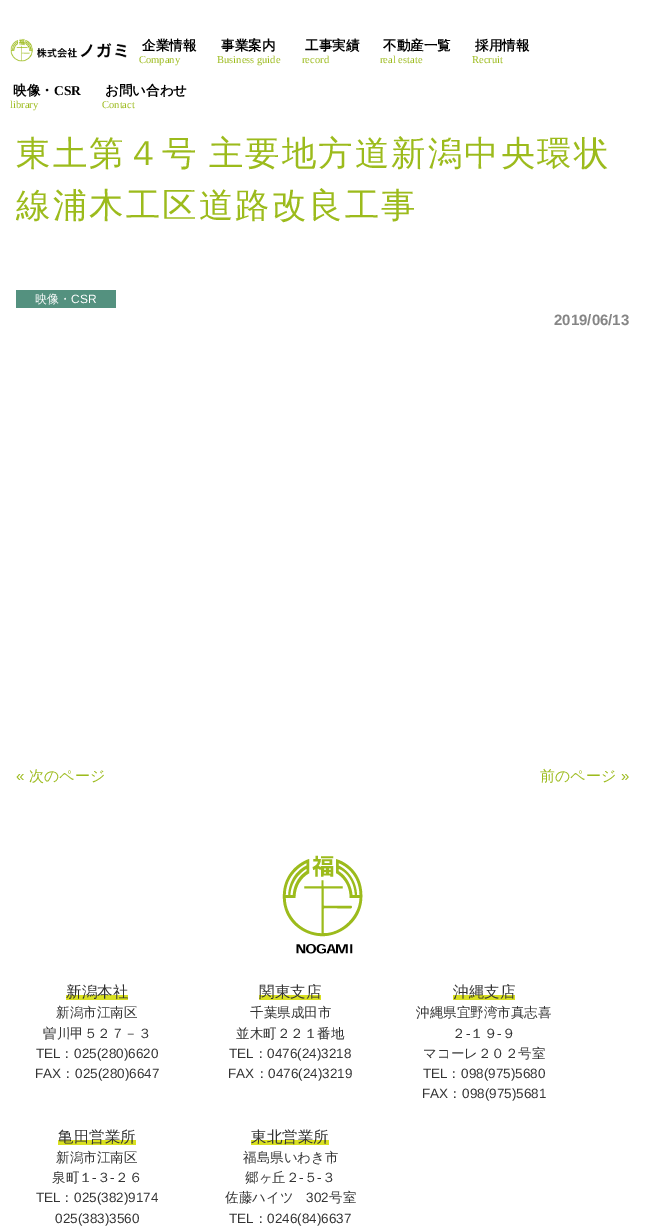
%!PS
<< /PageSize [645 1232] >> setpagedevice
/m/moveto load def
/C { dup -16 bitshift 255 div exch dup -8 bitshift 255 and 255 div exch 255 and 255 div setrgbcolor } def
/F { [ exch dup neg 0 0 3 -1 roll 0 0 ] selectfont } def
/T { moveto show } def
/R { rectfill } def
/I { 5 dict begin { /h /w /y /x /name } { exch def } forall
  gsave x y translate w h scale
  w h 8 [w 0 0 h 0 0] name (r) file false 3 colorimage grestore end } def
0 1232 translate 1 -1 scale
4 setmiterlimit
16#FFFFFF C
0 0 645 1232 R
(1.rgb) 10 38 117 24 I
/WenQuanYiZenHei-Bold 13.5 F
16#000000 C
(企業情報) 142 50 T
/LiberationSerif-Regular 10.5 F
16#9CBB1C C
(Company) 139 63 T
/WenQuanYiZenHei-Bold 13.5 F
16#000000 C
(事業案内) 221 50 T
/LiberationSerif-Regular 10.5 F
16#9CBB1C C
(Business guide) 217 63 T
/WenQuanYiZenHei-Bold 13.5 F
16#000000 C
(工事実績) 305 50 T
/LiberationSerif-Regular 10.5 F
16#9CBB1C C
(record) 302 63 T
/WenQuanYiZenHei-Bold 13.5 F
16#000000 C
(不動産一覧) 383 50 T
/LiberationSerif-Regular 10.5 F
16#9CBB1C C
(real estate) 380 63 T
/WenQuanYiZenHei-Bold 13.5 F
16#000000 C
(採用情報) 475 50 T
/LiberationSerif-Regular 10.5 F
16#9CBB1C C
(Recruit) 472 63 T
/WenQuanYiZenHei-Bold 13.5 F
16#000000 C
(映像・) 13 95 T
/LiberationSerif-Bold 13.5 F
(CSR) 54 95 T
/LiberationSerif-Regular 10.5 F
16#9CBB1C C
(library) 10 108 T
/WenQuanYiZenHei-Bold 13.5 F
16#000000 C
(お問い合わせ) 105 95 T
/LiberationSerif-Regular 10.5 F
16#9CBB1C C
(Contact) 102 108 T
/WenQuanYiZenHei-Medium 34.5 F
16 165 m -2 0 32 2 0 (東土第４号 主要地方道新潟中央環状) awidthshow
16 217 m 2 0 (線浦木工区道路改良工事) ashow
16#54917F C
16 290 100 18 R
/WenQuanYiZenHei-Medium 12 F
16#FFFFFF C
(映像・) 35 303 T
/LiberationSans-Regular 12 F
(CSR) 71 303 T
/LiberationSans-Bold 15 F
16#858585 C
(2019/06/13) 554 325 T
/LiberationSans-Regular 15 F
16#9CBB1C C
(«) 16 781 T
/WenQuanYiZenHei-Medium 15 F
(次のページ) 29 781 T
(前のページ) 540 781 T
/LiberationSans-Regular 15 F
(») 621 781 T
(2.rgb) 282 855 81 99 I
16#D9E021 C
66 995 62 5 R
/WenQuanYiZenHei-Medium 15.5 F
16#333333 C
(新潟本社) 66 997 T
/WenQuanYiZenHei-Medium 13.5 F
(新潟市江南区) 56 1017 T
(曽川甲５２７－３) 43 1038 T
/LiberationSans-Regular 13.5 F
(TEL) 36 1058 T
/WenQuanYiZenHei-Medium 13.5 F
(：) 60 1058 T
/LiberationSans-Regular 13.5 F
(025\(280\)6620) 74 1058 T
(FAX) 35 1078 T
/WenQuanYiZenHei-Medium 13.5 F
(：) 61 1078 T
/LiberationSans-Regular 13.5 F
(025\(280\)6647) 75 1078 T
16#D9E021 C
259 995 62 5 R
/WenQuanYiZenHei-Medium 15.5 F
16#333333 C
(関東支店) 259 997 T
/WenQuanYiZenHei-Medium 13.5 F
(千葉県成田市) 250 1017 T
(並木町２２１番地) 236 1038 T
/LiberationSans-Regular 13.5 F
(TEL) 229 1058 T
/WenQuanYiZenHei-Medium 13.5 F
(：) 254 1058 T
/LiberationSans-Regular 13.5 F
(0476\(24\)3218) 267 1058 T
(FAX) 228 1078 T
/WenQuanYiZenHei-Medium 13.5 F
(：) 255 1078 T
/LiberationSans-Regular 13.5 F
(0476\(24\)3219) 268 1078 T
16#D9E021 C
453 995 62 5 R
/WenQuanYiZenHei-Medium 15.5 F
16#333333 C
(沖縄支店) 453 997 T
/WenQuanYiZenHei-Medium 13.5 F
(沖縄県宜野湾市真志喜) 416 1017 T
(２) 452 1038 T
/LiberationSans-Regular 13.5 F
(-) 466 1038 T
/WenQuanYiZenHei-Medium 13.5 F
(１９) 470 1038 T
/LiberationSans-Regular 13.5 F
(-) 497 1038 T
/WenQuanYiZenHei-Medium 13.5 F
(９) 502 1038 T
(マコーレ２０２号室) 423 1058 T
/LiberationSans-Regular 13.5 F
(TEL) 423 1078 T
/WenQuanYiZenHei-Medium 13.5 F
(：) 447 1078 T
/LiberationSans-Regular 13.5 F
(098\(975\)5680) 461 1078 T
(FAX) 422 1098 T
/WenQuanYiZenHei-Medium 13.5 F
(：) 448 1098 T
/LiberationSans-Regular 13.5 F
(098\(975\)5681) 462 1098 T
16#D9E021 C
58 1140 78 5 R
/WenQuanYiZenHei-Medium 15.5 F
16#333333 C
(亀田営業所) 58 1142 T
/WenQuanYiZenHei-Medium 13.5 F
(新潟市江南区) 56 1162 T
(泉町１) 52 1182 T
/LiberationSans-Regular 13.5 F
(-) 92 1182 T
/WenQuanYiZenHei-Medium 13.5 F
(３) 97 1182 T
/LiberationSans-Regular 13.5 F
(-) 110 1182 T
/WenQuanYiZenHei-Medium 13.5 F
(２６) 115 1182 T
/LiberationSans-Regular 13.5 F
(TEL) 36 1202 T
/WenQuanYiZenHei-Medium 13.5 F
(：) 60 1202 T
/LiberationSans-Regular 13.5 F
(025\(382\)9174) 74 1202 T
(025\(383\)3560) 55 1223 T
16#D9E021 C
251 1140 78 5 R
/WenQuanYiZenHei-Medium 15.5 F
16#333333 C
(東北営業所) 251 1142 T
/WenQuanYiZenHei-Medium 13.5 F
(福島県いわき市) 243 1162 T
(郷ヶ丘２) 245 1182 T
/LiberationSans-Regular 13.5 F
(-) 299 1182 T
/WenQuanYiZenHei-Medium 13.5 F
(５) 304 1182 T
/LiberationSans-Regular 13.5 F
(-) 317 1182 T
/WenQuanYiZenHei-Medium 13.5 F
(３) 322 1182 T
(佐藤ハイツ) 225 1202 T
/LiberationSans-Regular 13.5 F
(302) 306 1202 T
/WenQuanYiZenHei-Medium 13.5 F
(号室) 329 1202 T
/LiberationSans-Regular 13.5 F
(TEL) 229 1223 T
/WenQuanYiZenHei-Medium 13.5 F
(：) 254 1223 T
/LiberationSans-Regular 13.5 F
(0246\(84\)6637) 267 1223 T
showpage
